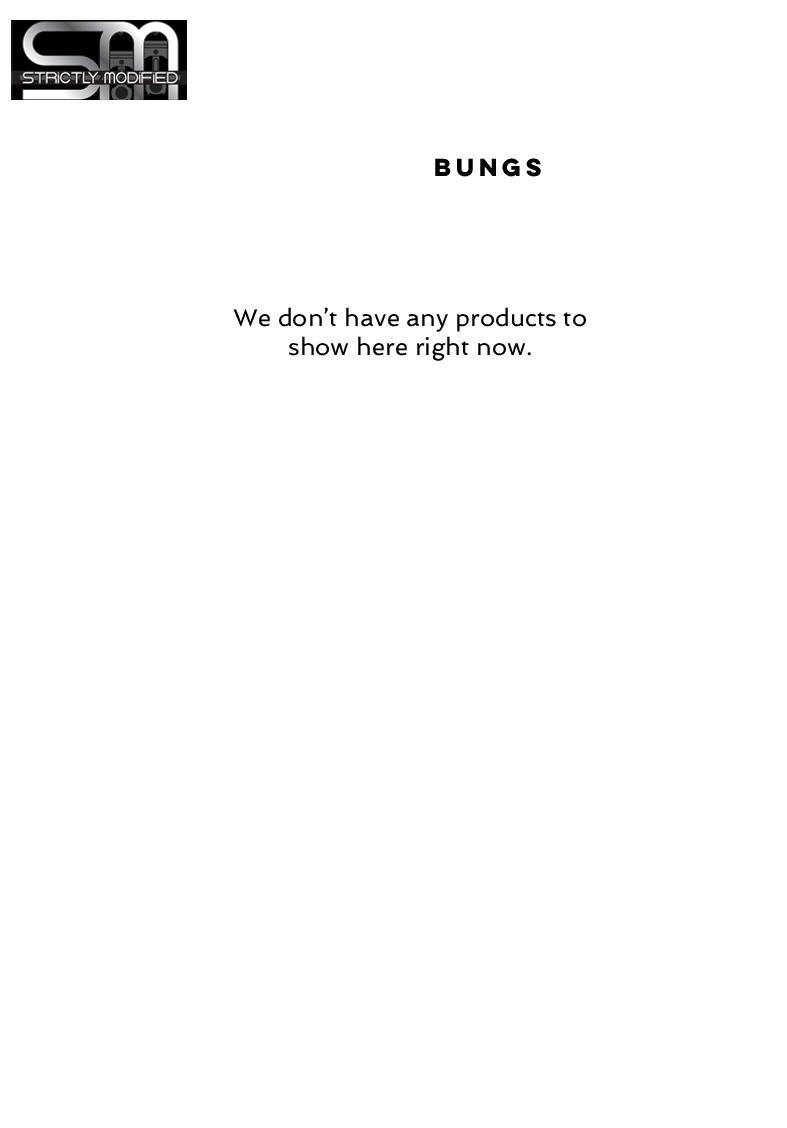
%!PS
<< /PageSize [787 1128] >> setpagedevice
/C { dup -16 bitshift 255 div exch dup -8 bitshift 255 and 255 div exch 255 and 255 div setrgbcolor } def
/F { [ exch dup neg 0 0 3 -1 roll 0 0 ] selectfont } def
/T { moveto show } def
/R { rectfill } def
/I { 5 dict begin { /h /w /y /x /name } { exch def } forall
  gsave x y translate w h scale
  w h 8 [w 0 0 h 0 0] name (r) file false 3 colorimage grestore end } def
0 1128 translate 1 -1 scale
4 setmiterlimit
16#FFFFFF C
0 0 787 1128 R
(1.rgb) 11 20 176 80 I
/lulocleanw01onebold-Bold 22 F
16#000000 C
(Bungs) 434 176 T
/Spinnaker-Regular 24 F
(We don’t have any products to) 233 326 T
(show here right now.) 288 355 T
showpage
